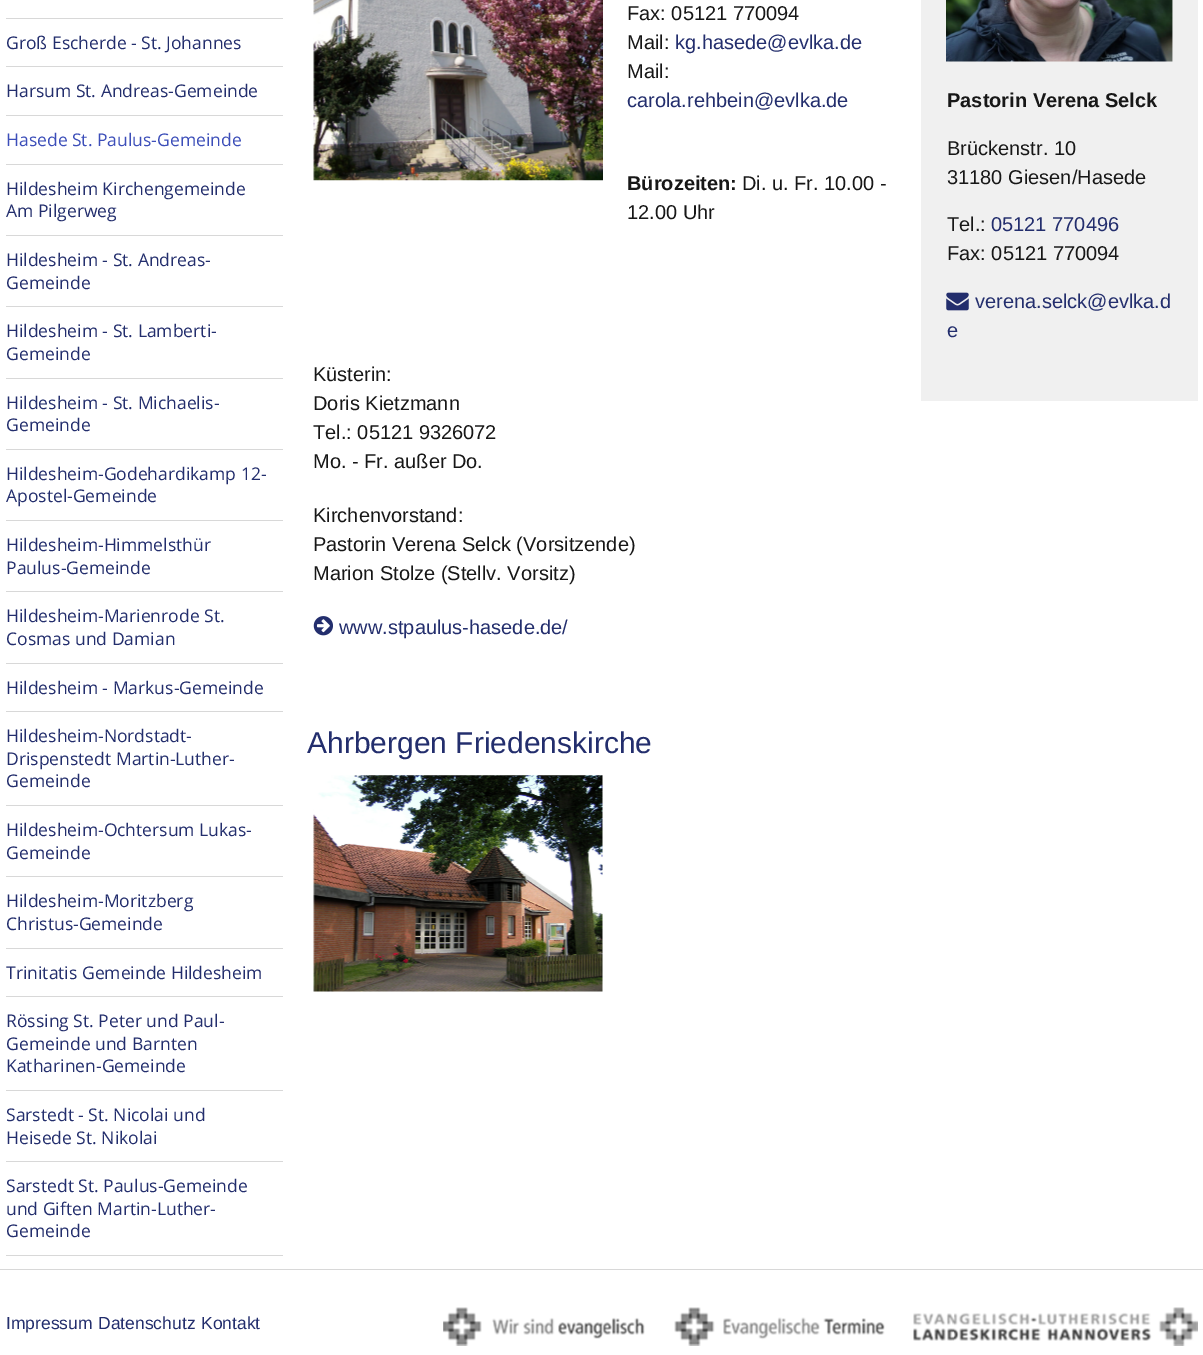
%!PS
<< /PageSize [1203 1355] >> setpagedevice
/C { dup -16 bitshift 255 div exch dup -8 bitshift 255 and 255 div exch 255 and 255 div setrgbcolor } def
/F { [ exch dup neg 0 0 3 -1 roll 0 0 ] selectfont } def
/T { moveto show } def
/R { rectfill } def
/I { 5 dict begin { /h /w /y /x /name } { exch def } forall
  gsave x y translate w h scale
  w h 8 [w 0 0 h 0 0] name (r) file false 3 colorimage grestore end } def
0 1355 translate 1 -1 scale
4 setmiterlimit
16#FFFFFF C
0 0 1203 1355 R
16#D8D8D8 C
6 18 277 1 R
6 66 277 1 R
/OpenSans-Regular 17.5 F
16#232E6D C
(Groß Escherde - St. Johannes) 6 49 T
16#D8D8D8 C
6 115 277 1 R
16#232E6D C
(Harsum St. Andreas-Gemeinde) 6 97 T
16#D8D8D8 C
6 164 277 1 R
16#3C4EB9 C
(Hasede St. Paulus-Gemeinde) 6 146 T
16#D8D8D8 C
6 235 277 1 R
16#232E6D C
(Hildesheim Kirchengemeinde) 6 195 T
(Am Pilgerweg) 6 217 T
16#D8D8D8 C
6 306 277 1 R
16#232E6D C
(Hildesheim - St. Andreas-) 6 266 T
(Gemeinde) 6 289 T
16#D8D8D8 C
6 378 277 1 R
16#232E6D C
(Hildesheim - St. Lamberti-) 6 337 T
(Gemeinde) 6 360 T
16#D8D8D8 C
6 449 277 1 R
16#232E6D C
(Hildesheim - St. Michaelis-) 6 409 T
(Gemeinde) 6 431 T
16#D8D8D8 C
6 520 277 1 R
16#232E6D C
(Hildesheim-Godehardikamp 12-) 6 480 T
(Apostel-Gemeinde) 6 502 T
16#D8D8D8 C
6 591 277 1 R
16#232E6D C
(Hildesheim-Himmelsthür) 6 551 T
(Paulus-Gemeinde) 6 574 T
16#D8D8D8 C
6 663 277 1 R
16#232E6D C
(Hildesheim-Marienrode St.) 6 622 T
(Cosmas und Damian) 6 645 T
16#D8D8D8 C
6 711 277 1 R
16#232E6D C
(Hildesheim - Markus-Gemeinde) 6 694 T
16#D8D8D8 C
6 805 277 1 R
16#232E6D C
(Hildesheim-Nordstadt-) 6 742 T
(Drispenstedt Martin-Luther-) 6 765 T
(Gemeinde) 6 787 T
16#D8D8D8 C
6 876 277 1 R
16#232E6D C
(Hildesheim-Ochtersum Lukas-) 6 836 T
(Gemeinde) 6 859 T
16#D8D8D8 C
6 948 277 1 R
16#232E6D C
(Hildesheim-Moritzberg) 6 907 T
(Christus-Gemeinde) 6 930 T
16#D8D8D8 C
6 996 277 1 R
16#232E6D C
(Trinitatis Gemeinde Hildesheim) 6 979 T
16#D8D8D8 C
6 1090 277 1 R
16#232E6D C
(Rössing St. Peter und Paul-) 6 1027 T
(Gemeinde und Barnten) 6 1050 T
(Katharinen-Gemeinde) 6 1072 T
16#D8D8D8 C
6 1161 277 1 R
16#232E6D C
(Sarstedt - St. Nicolai und) 6 1121 T
(Heisede St. Nikolai) 6 1144 T
16#D8D8D8 C
6 1255 277 1 R
16#232E6D C
(Sarstedt St. Paulus-Gemeinde) 6 1192 T
(und Giften Martin-Luther-) 6 1215 T
(Gemeinde) 6 1237 T
(1.rgb) 313 0 290 181 I
/LiberationSans-Regular 20 F
16#171717 C
(Fax: 05121 770094) 627 20 T
(Mail:) 627 49 T
16#232E6D C
(kg.hasede@evlka.de) 675 49 T
16#171717 C
(Mail:) 627 78 T
16#232E6D C
(carola.rehbein@evlka.de) 627 107 T
/LiberationSans-Bold 20 F
16#171717 C
(Bürozeiten:) 627 190 T
/LiberationSans-Regular 20 F
(Di. u. Fr. 10.00 -) 742 190 T
(12.00 Uhr) 627 219 T
(Küsterin:) 313 381 T
(Doris Kietzmann) 313 410 T
(Tel.: 05121 9326072) 313 439 T
(Mo. - Fr. außer Do.) 313 468 T
(Kirchenvorstand:) 313 522 T
(Pastorin Verena Selck \(Vorsitzende\)) 313 551 T
(Marion Stolze \(Stellv. Vorsitz\)) 313 580 T
(2.rgb) 313 616 20 20 I
16#232E6D C
(www.stpaulus-hasede.de/) 339 634 T
16#F0F0F0 C
921 0 277 401 R
(3.rgb) 946 0 227 62 I
/LiberationSans-Bold 20 F
16#171717 C
(Pastorin Verena Selck) 947 107 T
/LiberationSans-Regular 20 F
(Brückenstr. 10) 947 155 T
(31180 Giesen/Hasede) 947 184 T
(Tel.:) 947 231 T
16#232E6D C
(05121 770496) 991 231 T
16#171717 C
(Fax: 05121 770094) 947 260 T
(4.rgb) 946 292 23 19 I
16#232E6D C
(verena.selck@evlka.d) 975 308 T
(e) 947 337 T
/LiberationSans-Regular 30 F
(Ahrbergen Friedenskirche) 307 753 T
(5.rgb) 313 775 290 217 I
16#D8D8D8 C
0 1269 1203 1 R
/LiberationSans-Regular 17.5 F
16#232E6D C
(Impressum) 6 1329 T
(Datenschutz) 98 1329 T
(Kontakt) 201 1329 T
(6.rgb) 443 1307 202 39 I
(7.rgb) 674 1307 211 39 I
(8.rgb) 913 1307 285 39 I
showpage
